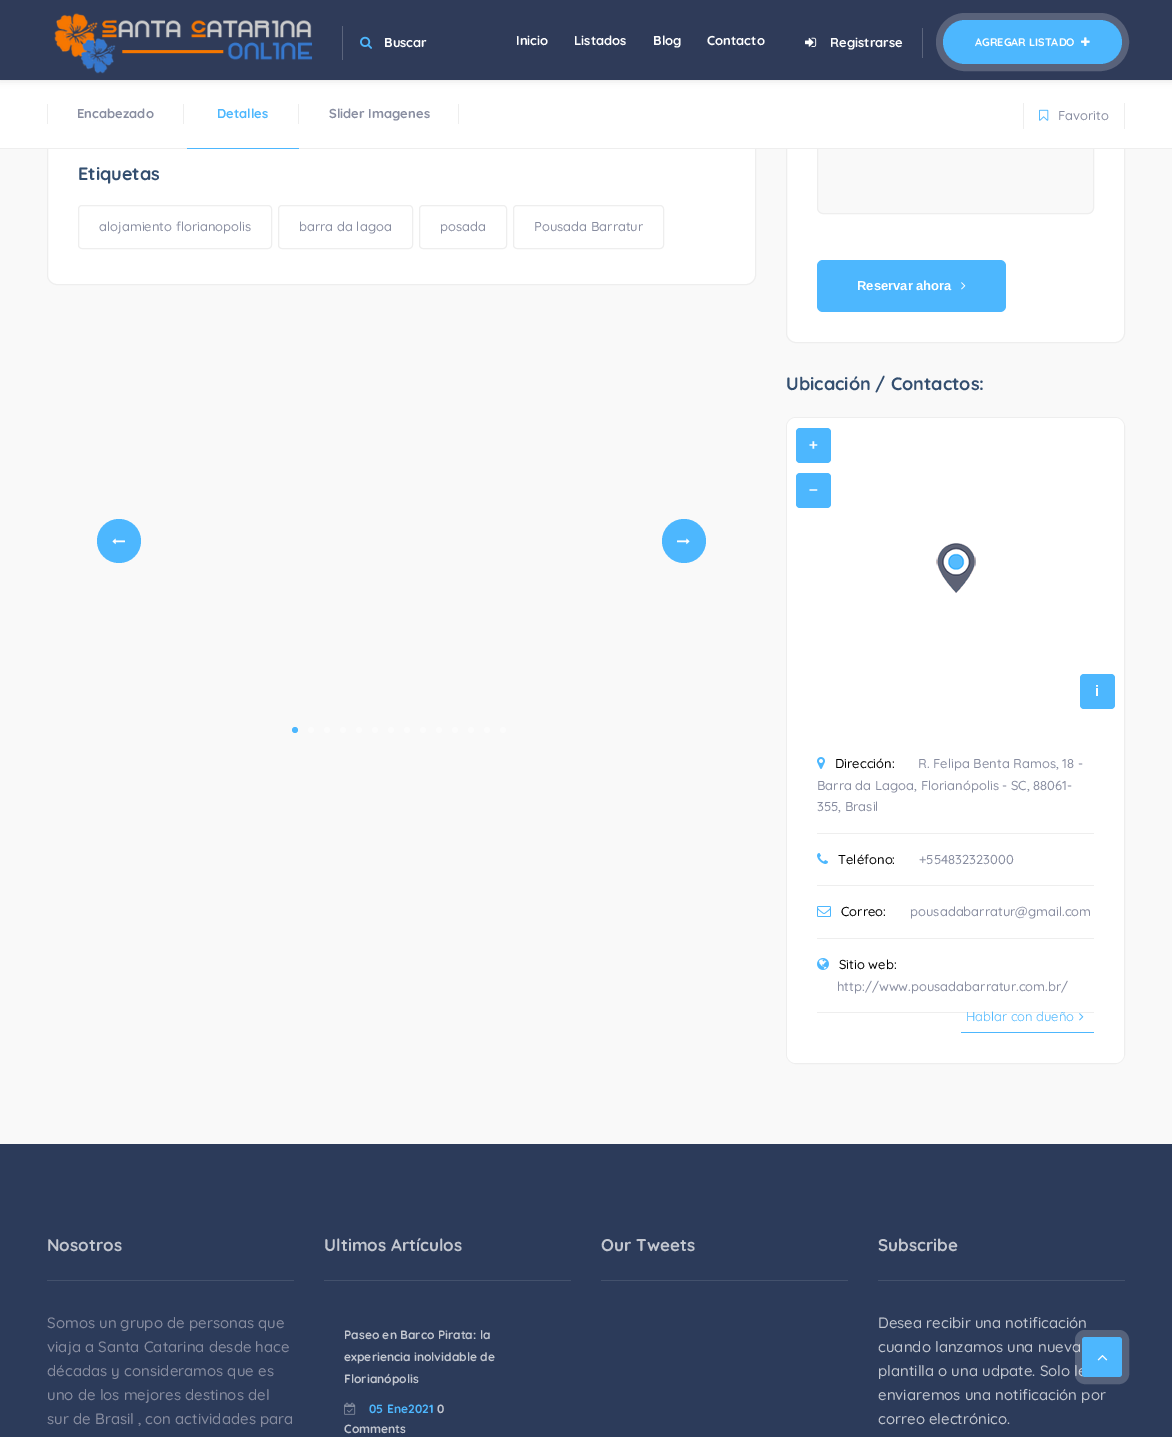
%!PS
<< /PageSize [1172 1437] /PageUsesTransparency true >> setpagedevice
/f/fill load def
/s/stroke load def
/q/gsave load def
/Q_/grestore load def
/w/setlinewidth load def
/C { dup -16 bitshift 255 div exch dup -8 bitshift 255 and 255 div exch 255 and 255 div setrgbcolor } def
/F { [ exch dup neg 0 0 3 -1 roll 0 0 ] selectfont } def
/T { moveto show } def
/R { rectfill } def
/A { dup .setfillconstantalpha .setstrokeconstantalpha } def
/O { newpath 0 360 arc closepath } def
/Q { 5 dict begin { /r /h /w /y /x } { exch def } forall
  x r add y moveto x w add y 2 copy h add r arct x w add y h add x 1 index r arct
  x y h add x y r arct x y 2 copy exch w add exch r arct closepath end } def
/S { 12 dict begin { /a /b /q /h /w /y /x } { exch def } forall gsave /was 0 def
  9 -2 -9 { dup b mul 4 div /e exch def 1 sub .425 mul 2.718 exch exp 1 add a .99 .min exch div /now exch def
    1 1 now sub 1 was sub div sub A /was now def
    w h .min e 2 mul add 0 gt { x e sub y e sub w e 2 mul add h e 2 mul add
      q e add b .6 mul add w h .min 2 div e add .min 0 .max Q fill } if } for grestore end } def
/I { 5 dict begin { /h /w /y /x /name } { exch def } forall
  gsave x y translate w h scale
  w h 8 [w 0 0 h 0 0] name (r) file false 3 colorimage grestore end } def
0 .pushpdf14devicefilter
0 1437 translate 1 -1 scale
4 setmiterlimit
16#F9F9F9 C
0 0 1172 1437 R
16#FFFFFF C
47.5 -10.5 708 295 9.5 Q q f Q_
16#EEEEEE C
s
16#FFFFFF C
786.5 -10.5 338 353 9.5 Q q f Q_
16#EEEEEE C
s
16#F9F9F9 C
817.5 14.5 276 199 5.5 Q q f Q_
16#EEEEEE C
s
16#FFFFFF C
0 80 1172 68 R
16#000000 C
0 0 1172 80 0 4 .12 S
16#2F3B59 C
0 0 1172 80 R
(1.rgb) 54 13 259 61 I
16#5B647C C
342 26 1 34 R
(2.rgb) 360 36 12 13 I
/Quicksand-Bold 13 F
16#FFFFFF C
(Buscar) 384 47 T
(Inicio) 516 45 T
(Listados) 574 45 T
(Blog) 653 45 T
(Contacto) 707 45 T
(3.rgb) 805 37 12 10 I
(Registrarse) 830 47 T
16#5B647C C
922 28 1 30 R
16#59627A C
7 w
939.5 16.5 186 51 25.5 Q s
16#4DB7FE C
943 20 179 44 22 Q f
/Quicksand-Bold 11 F
16#FFFFFF C
(AGREGAR LISTADO) 975 46 T
(4.rgb) 1081 37 9 9 I
16#EEEEEE C
0 148 1172 1 R
47 104 1 20 R
/Quicksand-Bold 13 F
16#888DA0 C
(Encabezado) 77 118 T
16#EEEEEE C
183 104 1 20 R
16#4DB7FE C
(Detalles) 217 118 T
187 148 112 1 R
16#EEEEEE C
298 104 1 20 R
16#888DA0 C
(Slider Imagenes) 329 118 T
16#EEEEEE C
458 104 1 20 R
1124 103 1 26 R
1023 103 1 26 R
(5.rgb) 1039 109 10 12 I
/Quicksand-Medium 13 F
16#888DA0 C
(Favorito) 1058 120 T
/Quicksand-Bold 18 F
16#334E6F C
(Etiquetas) 78 180 T
16#EEEEEE C
1 w
78.5 205.5 193 43 3.5 Q s
/Quicksand-Medium 13 F
16#888DA0 C
(alojamiento florianopolis) 99 231 T
16#EEEEEE C
278.5 205.5 134 43 3.5 Q s
16#888DA0 C
(barra da lagoa) 299 231 T
16#EEEEEE C
419.5 205.5 87 43 3.5 Q s
16#888DA0 C
(posada) 440 231 T
16#EEEEEE C
513.5 205.5 150 43 3.5 Q s
16#888DA0 C
(Pousada Barratur) 534 231 T
16#4DB7FE C
119 541 22 O f
(6.rgb) 112 538 13 7 I
684 541 22 O f
(7.rgb) 677 538 13 7 I
295 730 3 O f
16#FCFCFC C
311 730 3 O f
327 730 3 O f
343 730 3 O f
359 730 3 O f
375 730 3 O f
391 730 3 O f
407 730 3 O f
423 730 3 O f
439 730 3 O f
455 730 3 O f
471 730 3 O f
487 730 3 O f
503 730 3 O f
16#4DB7FE C
817 260 189 52 6 Q f
/LiberationSans-Bold 13 F
16#FFFFFF C
(Reservar ahora) 857 290 T
(8.rgb) 961 282 5 8 I
/Quicksand-Bold 18 F
16#334E6F C
(Ubicación / Contactos:) 786 390 T
16#EEEEEE C
786.5 417.5 338 646 9.5 Q s
16#FFFFFF C
787 418 337 645 9 Q f
16#4DB7FE C
796 428 35 35 4 Q f
/LiberationSans-Bold 15 F
16#FFFFFF C
(+) 809 450 T
16#4DB7FE C
796 473 35 35 4 Q f
16#FFFFFF C
(−) 809 495 T
16#4DB7FE C
1080 674 35 35 4 Q f
16#FFFFFF C
(i) 1095 696 T
(9.rgb) 936 543 40 50 I
16#EEEEEE C
817 833 277 1 R
(10.rgb) 817 757 8 12 I
/Quicksand-Medium 13 F
16#000000 C
(Dirección:) 835 768 T
16#888DA0 C
(R. Felipa Benta Ramos, 18 -) 918 768 T
(Barra da Lagoa, Florianópolis - SC, 88061-) 817 790 T
(355, Brasil) 817 811 T
16#EEEEEE C
817 885 277 1 R
(11.rgb) 817 853 11 11 I
16#000000 C
(Teléfono:) 838 864 T
16#888DA0 C
(+554832323000) 919 864 T
16#EEEEEE C
817 938 277 1 R
(12.rgb) 817 906 14 11 I
16#000000 C
(Correo:) 841 916 T
16#888DA0 C
(pousadabarratur@gmail.com) 910 916 T
16#EEEEEE C
817 1012 277 1 R
(13.rgb) 817 958 12 12 I
16#000000 C
(Sitio web:) 839 969 T
16#888DA0 C
(http://www.pousadabarratur.com.br/) 837 991 T
16#4DB7FE C
961 1032 133 1 R
/Quicksand-Regular 13 F
(Hablar con dueño) 966 1021 T
(14.rgb) 1079 1013 5 8 I
16#2C3B5A C
0 1144 1172 293 R
16#43516C C
47 1280 247 1 R
/Quicksand-Bold 17 F
16#C2C6CF C
(Nosotros) 47 1251 T
/Quicksand-Medium 15 F
16#888DA0 C
(Somos un grupo de personas que) 47 1328 T
(viaja a Santa Catarina desde hace) 47 1352 T
(décadas y consideramos que es) 47 1376 T
(uno de los mejores destinos del) 47 1400 T
(sur de Brasil , con actividades para) 47 1424 T
16#43516C C
324 1280 247 1 R
/Quicksand-Bold 17 F
16#C2C6CF C
(Ultimos Artículos) 324 1251 T
/Quicksand-Bold 12 F
(Paseo en Barco Pirata: la) 344 1339 T
(experiencia inolvidable de) 344 1361 T
(Florianópolis) 344 1383 T
(15.rgb) 344 1402 12 13 I
16#4DB7FE C
(05 Ene2021) 369 1413 T
16#C2C6CF C
(0) 437 1413 T
(Comments) 344 1433 T
16#43516C C
601 1280 247 1 R
/Quicksand-Bold 17 F
16#C2C6CF C
(Our Tweets) 601 1251 T
16#43516C C
878 1280 247 1 R
16#C2C6CF C
(Subscribe) 878 1251 T
/Quicksand-Medium 15 F
(Desea recibir una notificación) 878 1328 T
(cuando lanzamos una nueva) 878 1352 T
(plantilla o una udpate. Solo le) 878 1376 T
(enviaremos una notificación por) 878 1400 T
(correo electrónico.) 878 1424 T
0.2 A
16#FFFFFF C
7 w
1078.5 1333.5 47 47 6.5 Q s
1 A
16#4DB7FE C
1082 1337 40 40 3 Q f
(16.rgb) 1097 1355 11 6 I
.poppdf14devicefilter showpage
